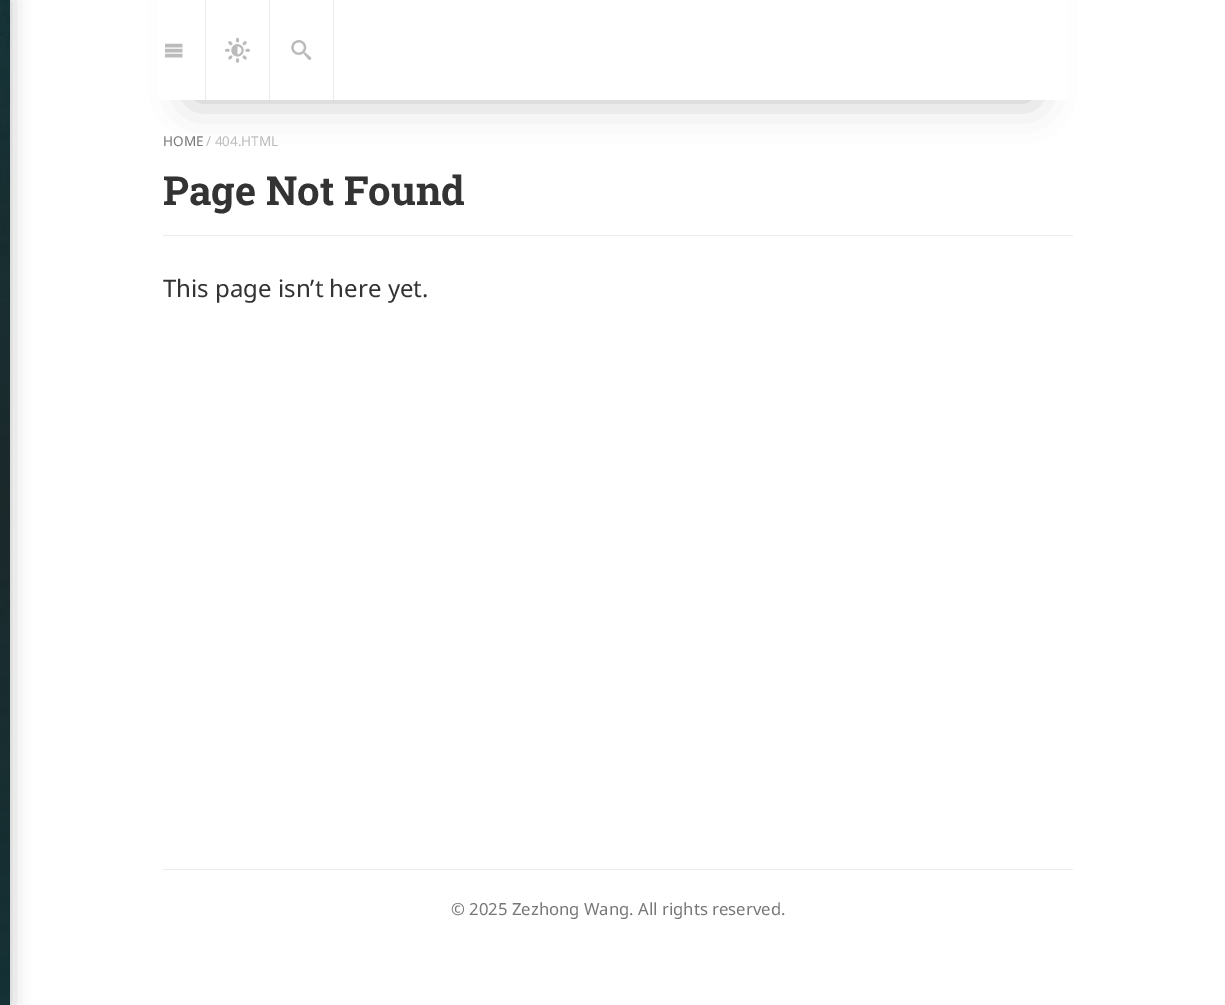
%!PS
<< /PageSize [1225 1005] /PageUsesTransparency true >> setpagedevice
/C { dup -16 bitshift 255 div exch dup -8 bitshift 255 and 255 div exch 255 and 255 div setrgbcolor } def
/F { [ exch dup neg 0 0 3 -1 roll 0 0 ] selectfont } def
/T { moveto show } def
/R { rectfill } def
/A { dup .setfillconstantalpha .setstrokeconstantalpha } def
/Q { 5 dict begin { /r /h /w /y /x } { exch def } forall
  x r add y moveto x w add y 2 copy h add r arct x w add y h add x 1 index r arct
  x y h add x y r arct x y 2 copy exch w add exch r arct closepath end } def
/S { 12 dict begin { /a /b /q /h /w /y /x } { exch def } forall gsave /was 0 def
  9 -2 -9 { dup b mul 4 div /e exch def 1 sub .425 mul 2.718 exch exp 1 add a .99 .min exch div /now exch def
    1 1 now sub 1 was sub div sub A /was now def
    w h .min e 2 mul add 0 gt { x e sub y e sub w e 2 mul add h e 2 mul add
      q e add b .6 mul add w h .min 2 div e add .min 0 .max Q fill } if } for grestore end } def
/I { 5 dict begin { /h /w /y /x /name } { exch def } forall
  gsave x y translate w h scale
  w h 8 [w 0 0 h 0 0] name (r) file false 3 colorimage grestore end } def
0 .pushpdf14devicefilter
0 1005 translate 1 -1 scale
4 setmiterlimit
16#FFFFFF C
0 0 1225 1005 R
16#000000 C
-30 0 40 1005 0 10 .25 S
(1.rgb) 0 0 10 1005 I
193 -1 840 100 0 20 .25 S
16#FFFFFF C
158 0 910 100 R
(2.rgb) 165 43 18 15 I
16#EBEBEB C
269 0 1 100 R
205 0 1 100 R
(3.rgb) 225 37 25 26 I
333 0 1 100 R
(4.rgb) 291 40 21 20 I
/NotoSans-Regular 13.5 F
16#777777 C
(HOME) 163 146 T
16#BBBBBB C
(/ 404.HTML) 206 146 T
/RobotoSlab-Bold 40 F
16#333333 C
(Page Not Found) 163 205 T
16#EBEBEB C
163 235 910 1 R
/NotoSans-Regular 24 F
16#333333 C
(This page isn’t here yet.) 163 297 T
16#EBEBEB C
163 869 910 1 R
/NotoSans-Regular 16.7 F
16#777777 C
(© 2025 Zezhong Wang. All rights reserved.) 451 915 T
.poppdf14devicefilter showpage
